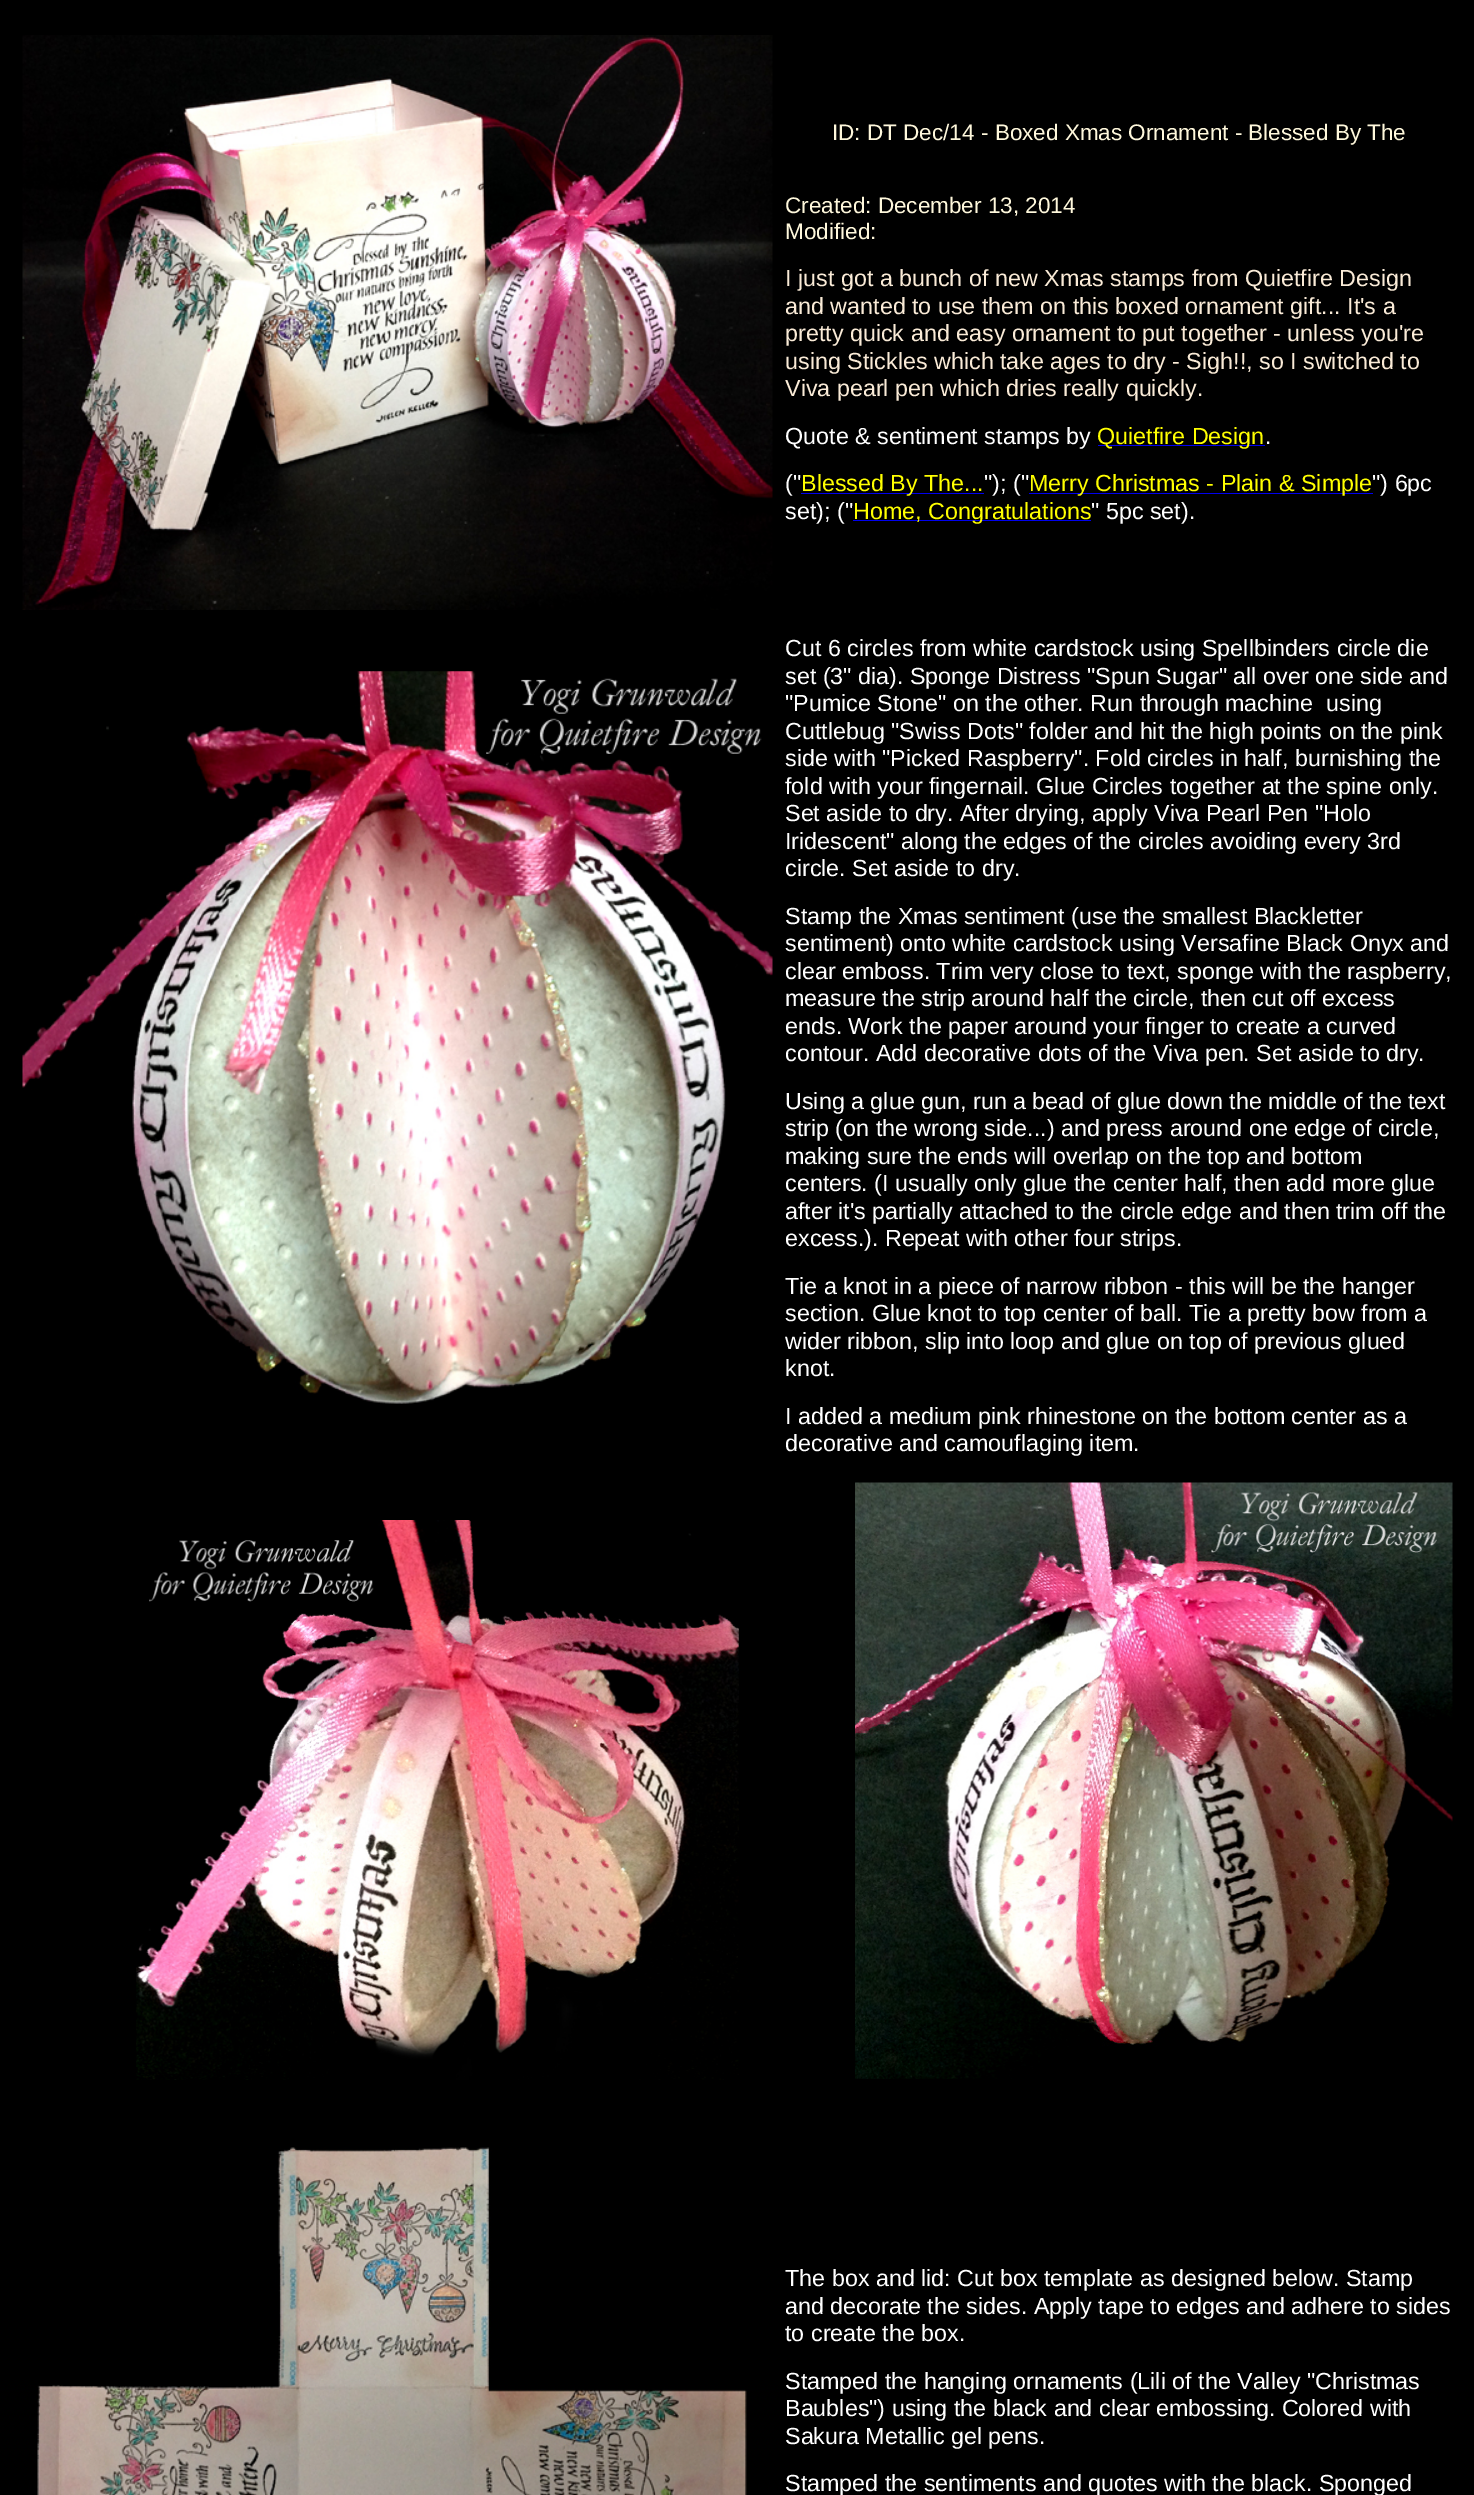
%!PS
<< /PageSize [1474 2495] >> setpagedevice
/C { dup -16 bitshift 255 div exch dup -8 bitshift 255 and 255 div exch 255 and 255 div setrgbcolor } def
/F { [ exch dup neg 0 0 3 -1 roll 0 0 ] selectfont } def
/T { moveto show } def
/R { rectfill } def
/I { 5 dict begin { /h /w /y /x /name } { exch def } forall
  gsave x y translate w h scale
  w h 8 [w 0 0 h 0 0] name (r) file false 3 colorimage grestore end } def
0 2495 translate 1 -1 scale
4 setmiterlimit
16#000000 C
0 0 1474 2495 R
(1.rgb) 22 35 751 575 I
/LiberationSans-Regular 22.5 F
16#FFF8DC C
(ID: DT Dec/14 - Boxed Xmas Ornament - Blessed By The) 832 140 T
(Created: December 13, 2014) 785 213 T
(Modified:) 785 239 T
/LiberationSans-Regular 23.3 F
16#FAEBD7 C
(I just got a bunch of new Xmas stamps from Quietfire Design) 785 286 T
(and wanted to use them on this boxed ornament gift... It's a) 785 314 T
(pretty quick and easy ornament to put together - unless you're) 785 341 T
(using Stickles which take ages to dry - Sigh!!, so I switched to) 785 369 T
(Viva pearl pen which dries really quickly.) 785 396 T
16#FFFFFF C
(Quote & sentiment stamps by) 785 444 T
16#0000EE C
1098 445 167 1 R
16#FFFF00 C
(Quietfire Design) 1097 444 T
16#FFFFFF C
(.) 1265 444 T
(\(") 785 491 T
16#0000EE C
801 493 183 1 R
16#FFFF00 C
(Blessed By The...) 801 491 T
16#FFFFFF C
("\); \(") 984 491 T
16#0000EE C
1029 493 344 1 R
16#FFFF00 C
(Merry Christmas - Plain & Simple) 1029 491 T
16#FFFFFF C
("\) 6pc) 1372 491 T
(set\); \(") 785 519 T
16#0000EE C
853 520 238 1 R
16#FFFF00 C
(Home, Congratulations) 853 519 T
16#FFFFFF C
(" 5pc set\).) 1091 519 T
(2.rgb) 22 671 751 733 I
(Cut 6 circles from white cardstock using Spellbinders circle die) 785 656 T
(set \(3" dia\). Sponge Distress "Spun Sugar" all over one side and) 785 684 T
("Pumice Stone" on the other. Run through machine  using) 785 711 T
(Cuttlebug "Swiss Dots" folder and hit the high points on the pink) 785 739 T
(side with "Picked Raspberry". Fold circles in half, burnishing the) 785 766 T
(fold with your fingernail. Glue Circles together at the spine) 785 794 T
(only.) 1389 794 T
(Set aside to dry. After drying, apply Viva Pearl Pen "Holo) 785 821 T
(Iridescent" along the edges of the circles avoiding every 3rd) 785 849 T
(circle. Set aside to dry.) 785 876 T
(Stamp the Xmas sentiment \(use the smallest Blackletter) 785 924 T
(sentiment\) onto white cardstock using Versafine Black Onyx and) 785 951 T
(clear emboss. Trim very close to text, sponge with the raspberry,) 785 979 T
(measure the strip around half the circle, then cut off excess) 785 1006 T
(ends. Work the paper around your finger to create a curved) 785 1034 T
(contour. Add decorative dots of the Viva pen. Set aside to dry.) 785 1061 T
(Using a glue gun, run a bead of glue down the middle of the text) 785 1109 T
(strip \(on the wrong side...\) and press around one edge of circle,) 785 1136 T
(making sure the ends will overlap on the top and bottom) 785 1164 T
(centers. \(I usually only glue the center half, then add more glue) 785 1191 T
(after it's partially attached to the circle edge and then trim off the) 785 1219 T
(excess.\). Repeat with other four strips.) 785 1246 T
(Tie a knot in a piece of narrow ribbon - this will be the hanger) 785 1294 T
(section. Glue knot to top center of ball. Tie a pretty bow from a) 785 1321 T
(wider ribbon, slip into loop and glue on top of previous glued) 785 1349 T
(knot.) 785 1376 T
(I added a medium pink rhinestone on the bottom center as a) 785 1424 T
(decorative and camouflaging item.) 785 1451 T
(3.rgb) 136 1520 603 560 I
(4.rgb) 855 1482 598 597 I
(5.rgb) 37 2147 710 348 I
(The box and lid: Cut box template as designed below. Stamp) 785 2286 T
(and decorate the sides. Apply tape to edges and adhere to sides) 785 2314 T
(to create the box.) 785 2341 T
(Stamped the hanging ornaments \(Lili of the Valley "Christmas) 785 2389 T
(Baubles"\) using the black and clear embossing. Colored) 785 2416 T
(with) 1370 2416 T
(Sakura Metallic gel pens.) 785 2444 T
(Stamped the sentiments and quotes with the black. Sponged) 785 2491 T
showpage
